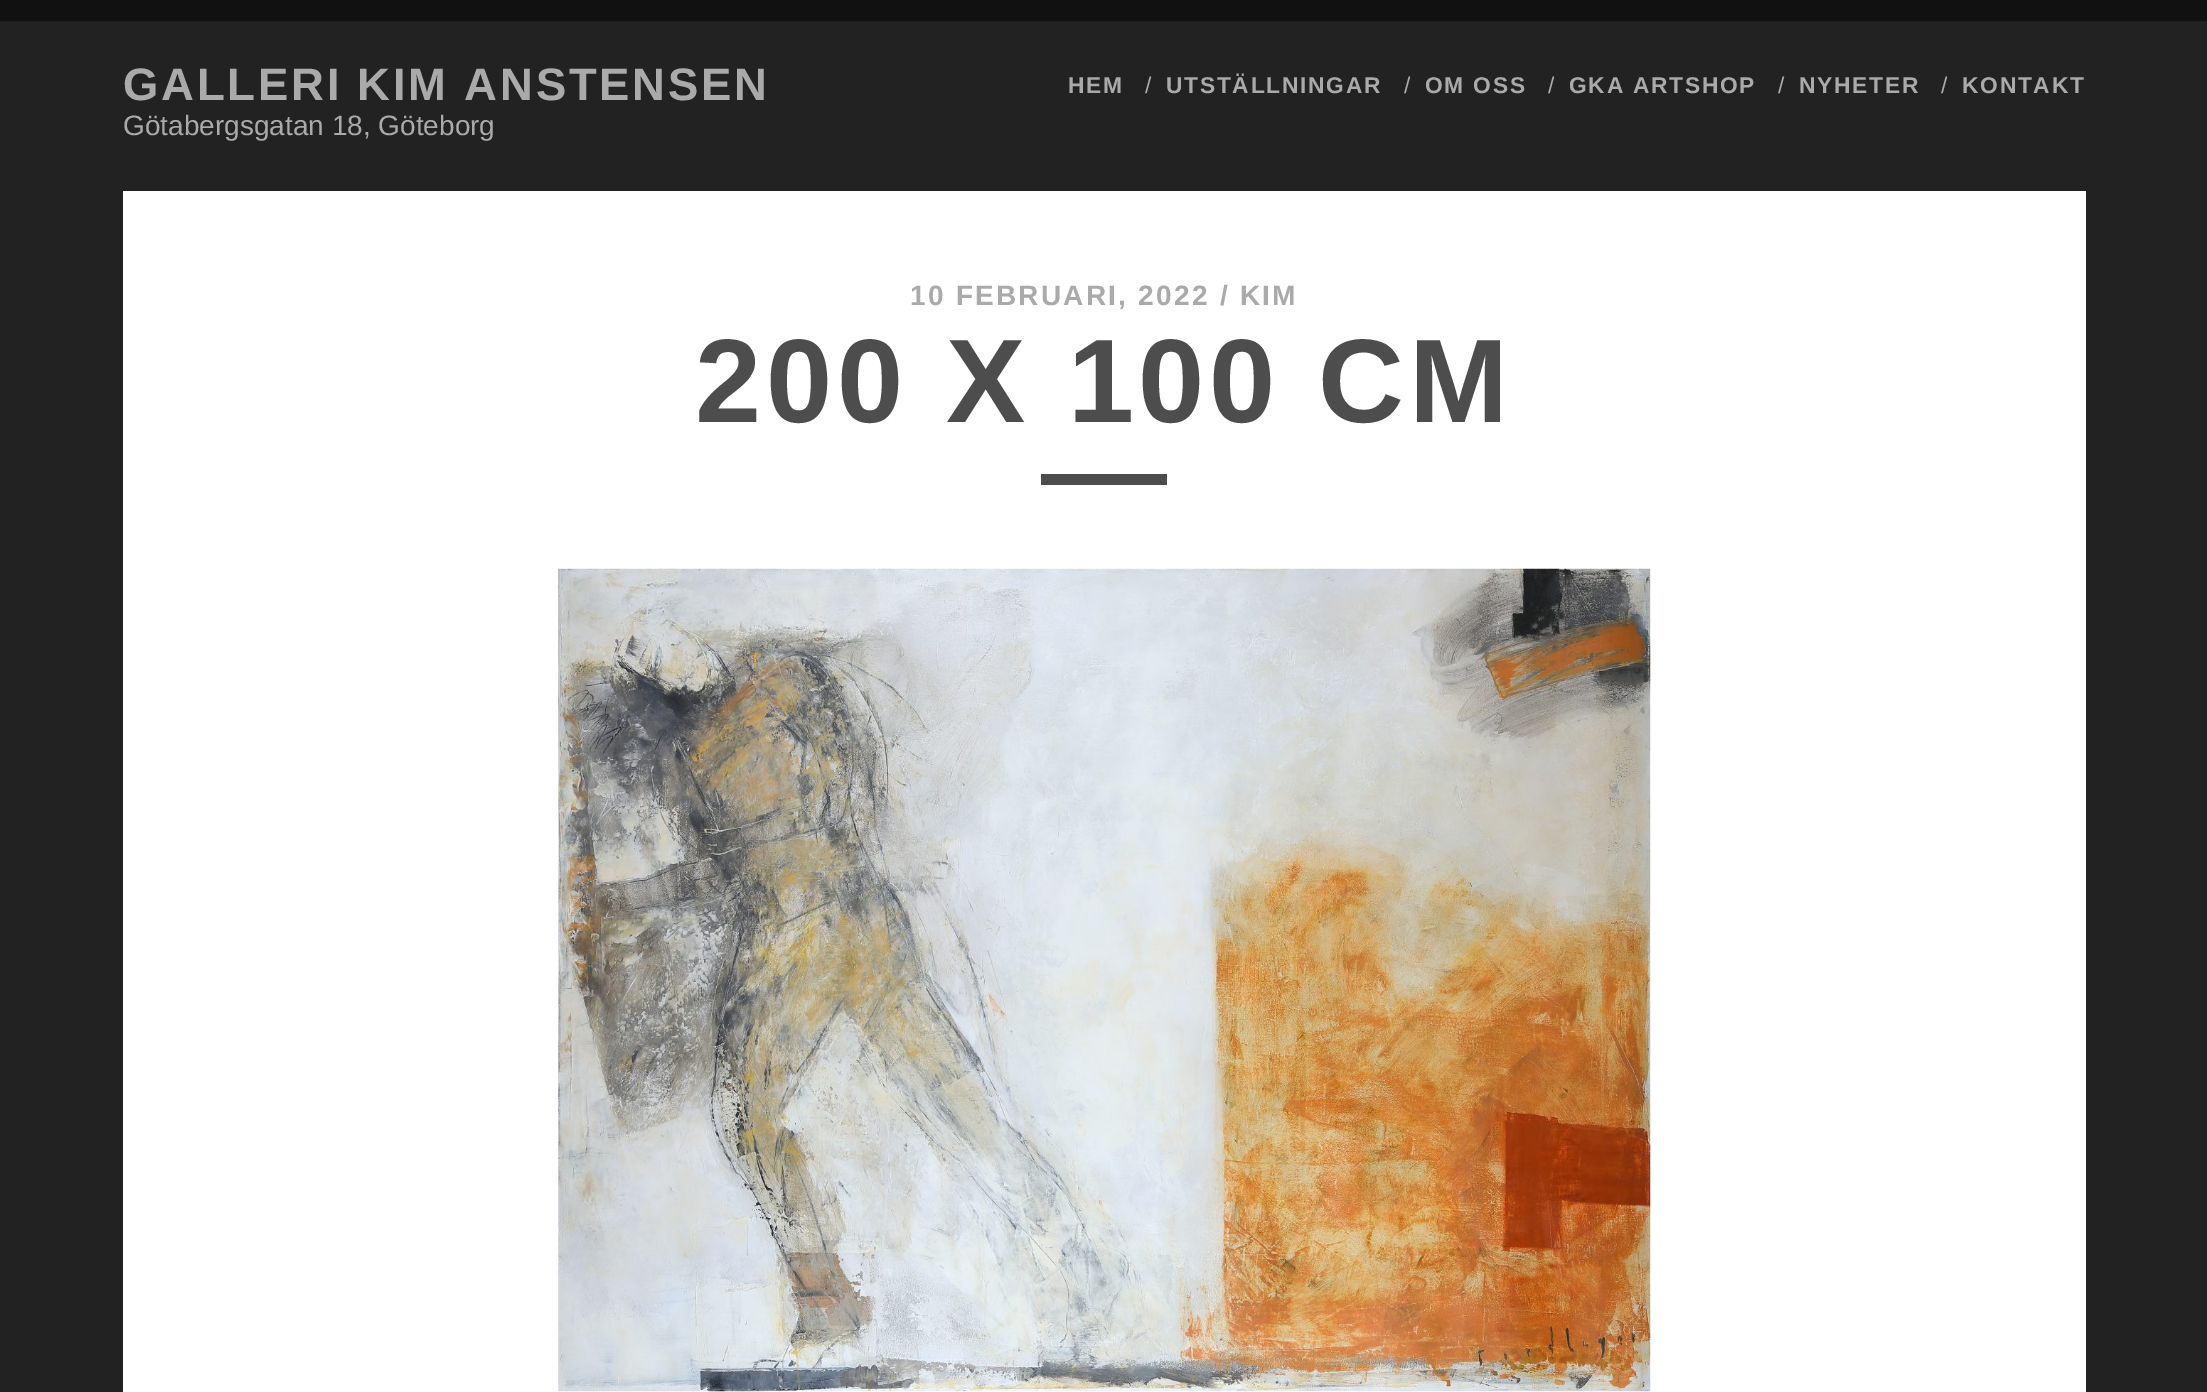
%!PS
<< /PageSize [2207 1392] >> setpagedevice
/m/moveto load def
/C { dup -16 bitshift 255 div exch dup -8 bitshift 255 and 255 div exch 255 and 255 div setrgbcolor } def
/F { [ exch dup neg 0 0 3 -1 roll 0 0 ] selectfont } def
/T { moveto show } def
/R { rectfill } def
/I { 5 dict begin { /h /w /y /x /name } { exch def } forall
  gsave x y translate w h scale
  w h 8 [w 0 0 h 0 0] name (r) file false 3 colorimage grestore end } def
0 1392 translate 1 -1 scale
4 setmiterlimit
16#222222 C
0 0 2207 1392 R
16#111111 C
0 0 2207 21 R
/LiberationSans-Bold 45.5 F
16#AAAAAA C
123 100 m 2.75 0 (GALLERI KIM ANSTENSEN) ashow
/LiberationSans-Bold 22.75 F
1068 93 m 1.75 0 (HEM) ashow
/LiberationSans-Regular 22.75 F
(/) 1145 93 T
/LiberationSans-Bold 22.75 F
1166 93 m 1.75 0 (UTSTÄLLNINGAR) ashow
/LiberationSans-Regular 22.75 F
(/) 1404 93 T
/LiberationSans-Bold 22.75 F
1425 93 m 1.75 0 (OM OSS) ashow
/LiberationSans-Regular 22.75 F
(/) 1548 93 T
/LiberationSans-Bold 22.75 F
1569 93 m 1.75 0 (GKA ARTSHOP) ashow
/LiberationSans-Regular 22.75 F
(/) 1778 93 T
/LiberationSans-Bold 22.75 F
1799 93 m 1.75 0 (NYHETER) ashow
/LiberationSans-Regular 22.75 F
(/) 1941 93 T
/LiberationSans-Bold 22.75 F
1962 93 m 1.75 0 (KONTAKT) ashow
/LiberationSans-Regular 28 F
(Götabergsgatan 18, Göteborg) 123 135 T
16#FFFFFF C
123 191 1963 1201 R
/LiberationSans-Bold 28 F
16#AAAAAA C
910 305 m 2.25 0 (10 FEBRUARI, 2022 / KIM) ashow
/LiberationSans-Bold 119 F
16#4D4D4D C
695 422 m 4.75 0 (200 X 100 CM) ashow
1041 474 126 11 R
(1.rgb) 558 568 1093 824 I
showpage
